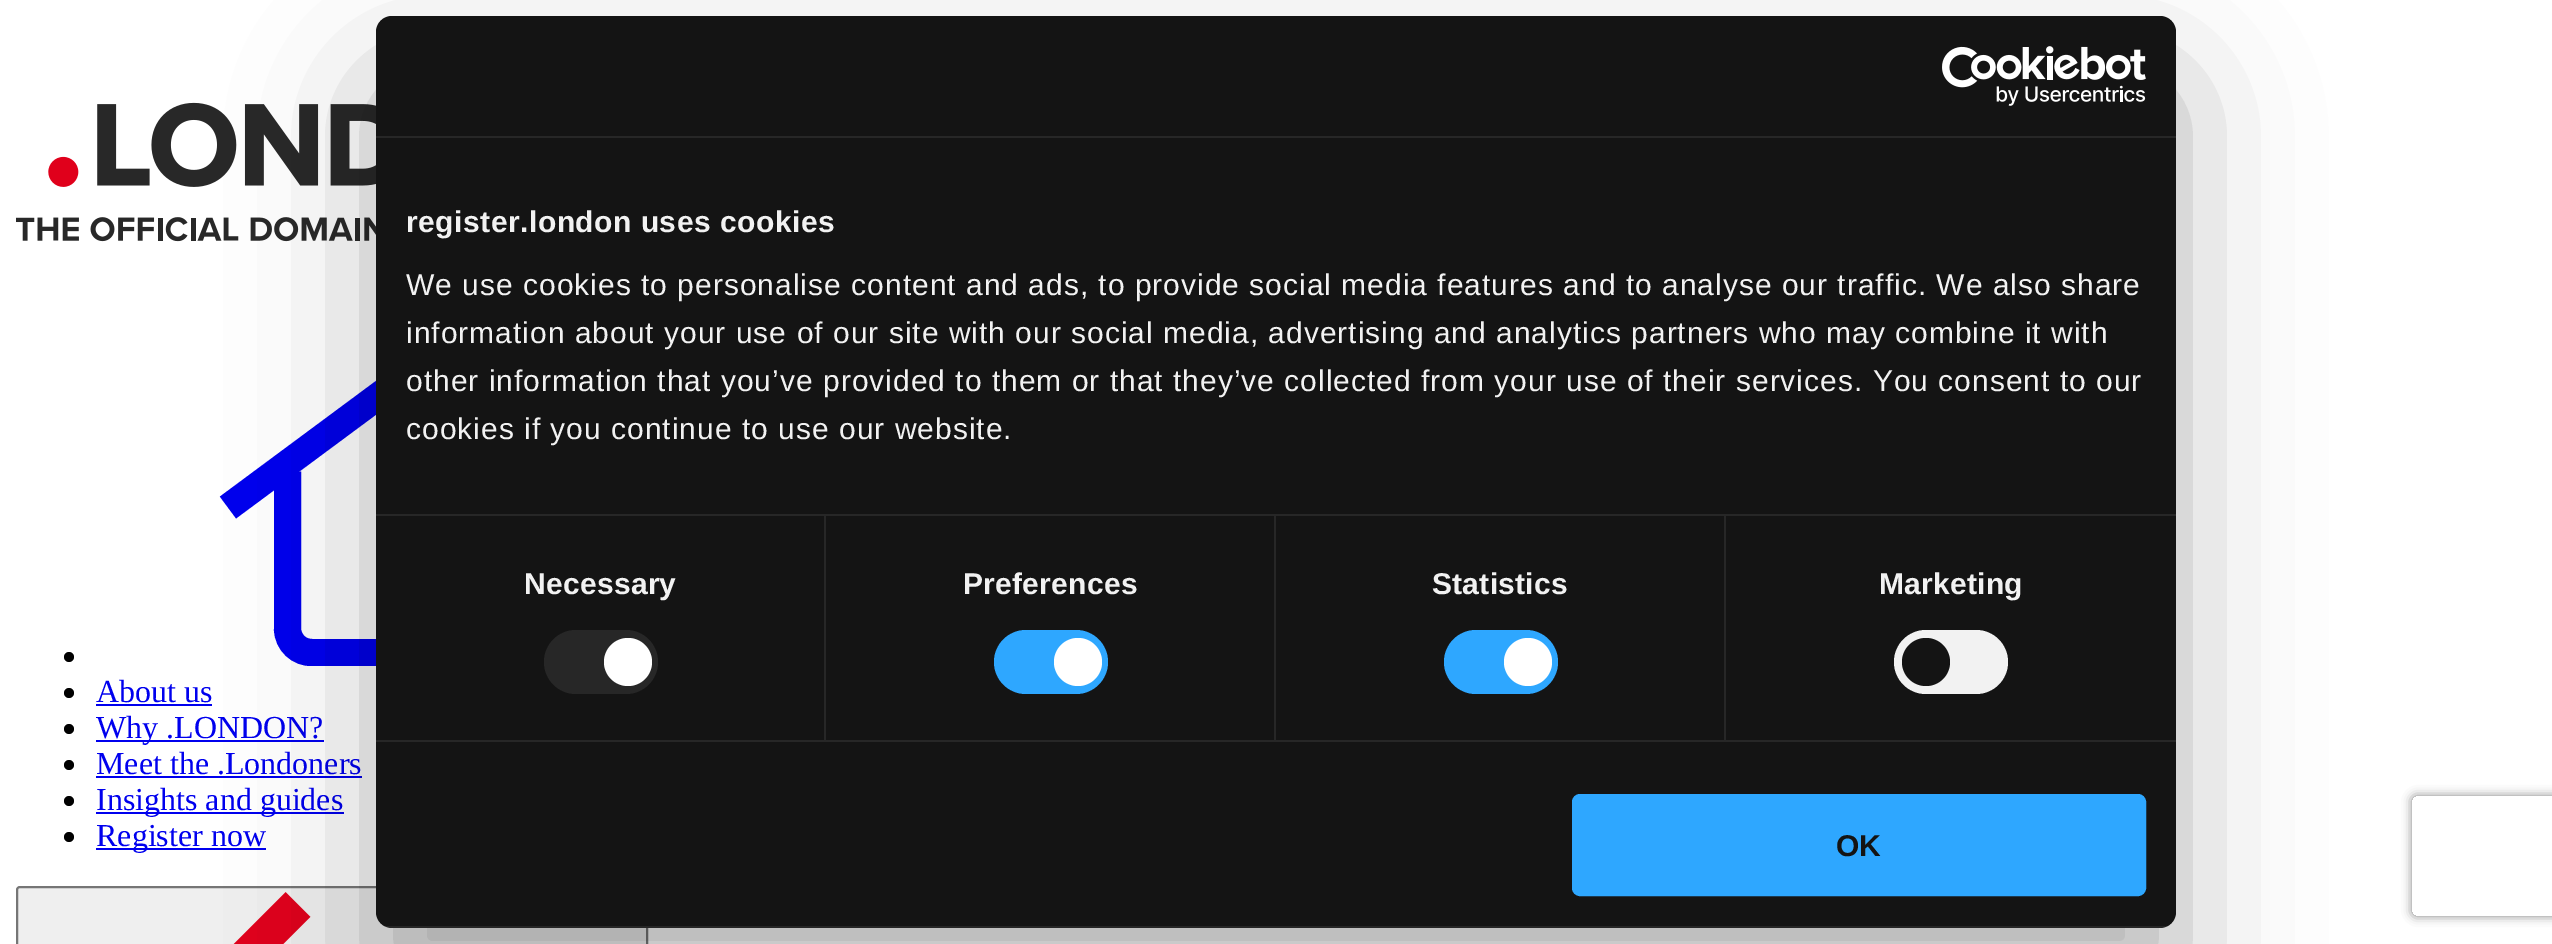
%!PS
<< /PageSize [2552 944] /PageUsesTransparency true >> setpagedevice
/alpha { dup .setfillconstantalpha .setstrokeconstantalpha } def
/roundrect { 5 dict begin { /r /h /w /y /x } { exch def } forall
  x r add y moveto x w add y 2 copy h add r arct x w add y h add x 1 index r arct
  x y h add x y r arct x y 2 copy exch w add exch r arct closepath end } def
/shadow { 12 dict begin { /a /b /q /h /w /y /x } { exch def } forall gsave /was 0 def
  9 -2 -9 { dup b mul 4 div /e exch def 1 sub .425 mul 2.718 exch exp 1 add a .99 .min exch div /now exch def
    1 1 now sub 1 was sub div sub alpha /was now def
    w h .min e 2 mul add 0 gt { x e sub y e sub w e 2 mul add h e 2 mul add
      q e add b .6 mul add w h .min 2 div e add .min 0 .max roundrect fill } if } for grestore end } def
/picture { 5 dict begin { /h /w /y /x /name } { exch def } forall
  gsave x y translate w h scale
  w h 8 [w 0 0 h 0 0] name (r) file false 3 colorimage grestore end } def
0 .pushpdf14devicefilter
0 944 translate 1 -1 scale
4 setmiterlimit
1 setgray
0 0 2552 944 rectfill
(img1.rgb) 16 102 360 140 picture
0 0 0.933 setrgbcolor
27.1 setlinewidth
newpath 228 507.5 moveto 396 383 lineto 564 507.5 lineto stroke
0 setgray
newpath 69 657 5 0 360 arc closepath fill
gsave
96 366 600 300 rectclip
0 0 0.933 setrgbcolor
newpath 401.5 652.5 moveto 312.5 652.5 lineto 299 653 288 642.5 287.5 629 curveto 287.5 471.5 lineto stroke
grestore
newpath 69 693 5 0 360 arc closepath fill
/LiberationSerif-Regular [32 0 0 -32 0 0] selectfont
0 0 0.933 setrgbcolor
96 702 moveto (About us) show
96 704 116 2 rectfill
0 setgray
newpath 69 729 5 0 360 arc closepath fill
0 0 0.933 setrgbcolor
96 740 228 2 rectfill
96 738 moveto (Why .LONDON?) show
0 setgray
newpath 69 765 5 0 360 arc closepath fill
0 0 0.933 setrgbcolor
96 774 moveto (Meet the .Londoners) show
96 776 266 2 rectfill
0 setgray
newpath 69 801 5 0 360 arc closepath fill
0 0 0.933 setrgbcolor
96 812 248 2 rectfill
96 810 moveto (Insights and guides) show
0 setgray
newpath 69 837 5 0 360 arc closepath fill
0 0 0.933 setrgbcolor
96 848 170 2 rectfill
96 846 moveto (Register now) show
0.937 setgray
17 887 630 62 3 roundrect gsave fill grestore
0.463 setgray
2 setlinewidth
stroke
0.878 0.004 0.11 setrgbcolor
34.8 setlinewidth
newpath 298 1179.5 moveto 160.5 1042 lineto 298 904.5 lineto stroke
0 setgray
376 80 1800 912 16 68 0.3 shadow
0.078 setgray
376 16 1800 912 16 roundrect fill
0.153 setgray
376 136 1800 2 rectfill
(img2.rgb) 1942 46 204 60 picture
376 514 1800 2 rectfill
/LiberationSans-Bold [30 0 0 -30 0 0] selectfont
0.949 setgray
406 232 moveto 0.5 0 (register.london uses cookies) ashow
/LiberationSans-Regular [30 0 0 -30 0 0] selectfont
406 295 moveto 1 0 (We use cookies to personalise content and ads, to provide social media features and to analyse our traffic. We also share) ashow
406 343 moveto 1 0 (information about your use of our site with our social media, advertising and analytics partners who may combine it with) ashow
406 391 moveto 1 0 (other information that you’ve provided to them or that they’ve collected from your use of their services. You consent to our) ashow
406 439 moveto 1 0 (cookies if you continue to use our website.) ashow
0.153 setgray
376 740 1800 2 rectfill
824 516 2 224 rectfill
/LiberationSans-Bold [30 0 0 -30 0 0] selectfont
0.949 setgray
524 594 moveto 0.25 0 (Necessary) ashow
0.153 setgray
544 630 114 64 32 roundrect fill
1 setgray
newpath 628 662 24 0 360 arc closepath fill
0.153 setgray
1274 516 2 224 rectfill
0.949 setgray
963 594 moveto 0.25 0 (Preferences) ashow
0.18 0.655 1 setrgbcolor
994 630 114 64 32 roundrect fill
1 setgray
newpath 1078 662 24 0 360 arc closepath fill
0.153 setgray
1724 516 2 224 rectfill
0.949 setgray
1432 594 moveto 0.25 0 (Statistics) ashow
0.18 0.655 1 setrgbcolor
1444 630 114 64 32 roundrect fill
1 setgray
newpath 1528 662 24 0 360 arc closepath fill
0.949 setgray
1879 594 moveto 0.25 0 (Marketing) ashow
1894 630 114 64 32 roundrect fill
0.078 setgray
newpath 1926 662 24 0 360 arc closepath fill
gsave
376 16 1800 912 16 roundrect clip newpath
0.08 alpha
1 setgray
385 926 1782 2 rectfill
grestore
0.18 0.655 1 setrgbcolor
1574 796 570 98 6 roundrect gsave fill grestore
4 setlinewidth
stroke
0.078 setgray
1836 856 moveto (OK) show
gsave
newpath 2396 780 moveto 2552 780 lineto 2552 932 lineto 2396 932 lineto closepath 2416 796 moveto 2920 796 lineto 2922 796 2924 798 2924 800 curveto 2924 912 lineto 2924 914 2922 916 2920 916 curveto 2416 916 lineto 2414 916 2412 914 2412 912 curveto 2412 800 lineto 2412 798 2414 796 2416 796 curveto closepath eoclip newpath
0.502 setgray
2412 796 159 120 4 5 1 shadow
grestore
.poppdf14devicefilter showpage
